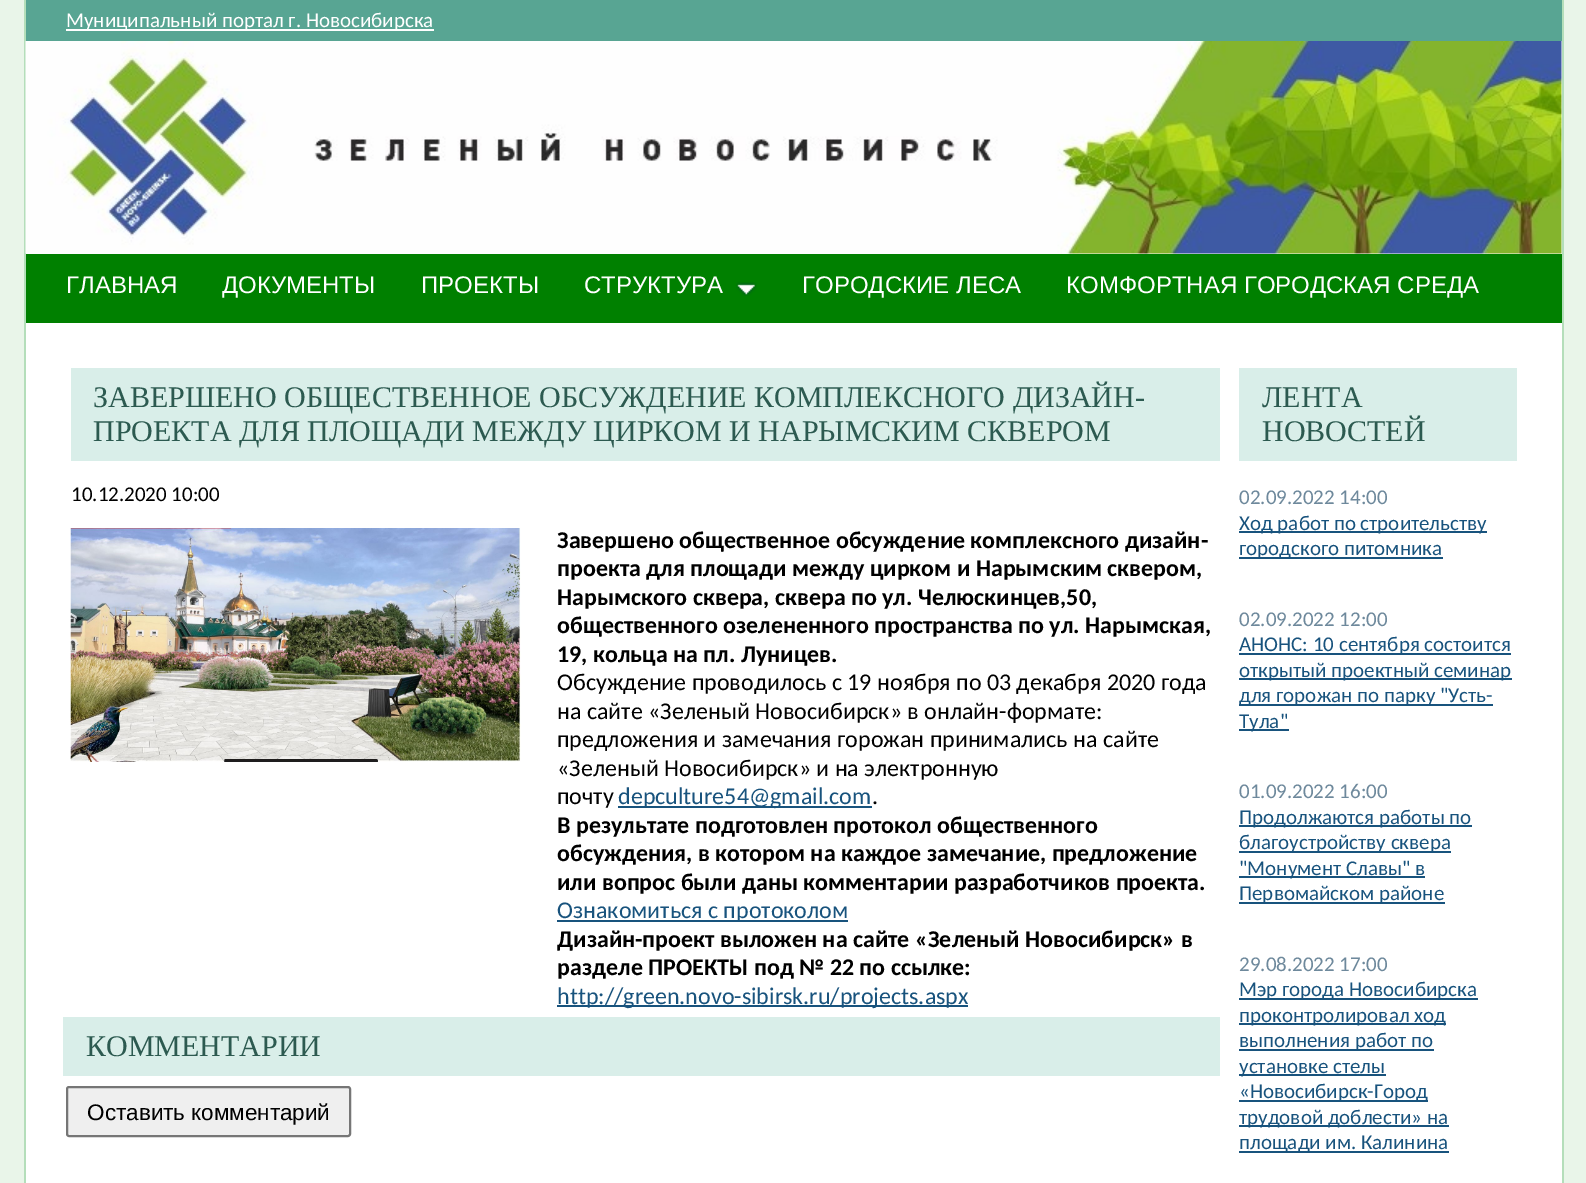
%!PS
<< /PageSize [1586 1183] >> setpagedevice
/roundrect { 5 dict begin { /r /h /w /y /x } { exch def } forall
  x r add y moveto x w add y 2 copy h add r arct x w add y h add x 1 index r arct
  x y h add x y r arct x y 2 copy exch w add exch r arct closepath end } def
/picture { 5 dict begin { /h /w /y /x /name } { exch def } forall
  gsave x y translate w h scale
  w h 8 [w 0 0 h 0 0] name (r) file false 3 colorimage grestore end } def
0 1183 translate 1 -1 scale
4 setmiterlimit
0.914 0.961 0.914 setrgbcolor
0 0 1586 1183 rectfill
1 setgray
26 41 1536 1142 rectfill
0.706 0.871 0.729 setrgbcolor
1562 0 2 1183 rectfill
24 0 2 1183 rectfill
(img1.rgb) 25 41 1537 213 picture
0.345 0.647 0.576 setrgbcolor
26 0 1536 41 rectfill
1 setgray
66 29 368 2 rectfill
/Carlito-Regular [21 0 0 -21 0 0] selectfont
66 27 moveto (Муниципальный портал г. Новосибирска) show
0 0.502 0 setrgbcolor
26 254 1536 69 rectfill
/LiberationSans-Regular [24 0 0 -24 0 0] selectfont
1 setgray
66 293 moveto (ГЛАВНАЯ) show
222 293 moveto (ДОКУМЕНТЫ) show
421 293 moveto (ПРОЕКТЫ) show
(img2.rgb) 736 282 21 14 picture
584 293 moveto (СТРУКТУРА) show
802 293 moveto (ГОРОДСКИЕ ЛЕСА) show
1066 293 moveto (КОМФОРТНАЯ ГОРОДСКАЯ СРЕДА) show
0.851 0.933 0.914 setrgbcolor
71 368 1149 93 rectfill
/LiberationSerif-Regular [30 0 0 -30 0 0] selectfont
0.173 0.353 0.314 setrgbcolor
93 407 moveto (ЗАВЕРШЕНО ОБЩЕСТВЕННОЕ ОБСУЖДЕНИЕ КОМПЛЕКСНОГО ДИЗАЙН-) show
93 441 moveto (ПРОЕКТА ДЛЯ ПЛОЩАДИ МЕЖДУ ЦИРКОМ И НАРЫМСКИМ СКВЕРОМ) show
/Carlito-Regular [21 0 0 -21 0 0] selectfont
0 setgray
71 501 moveto (10.12.2020 10:00) show
(img3.rgb) 70 528 451 234 picture
/Carlito-Bold [24 0 0 -24 0 0] selectfont
557 548 moveto (Завершено общественное обсуждение комплексного дизайн-) show
557 576 moveto (проекта для площади между цирком и Нарымским сквером,) show
557 605 moveto (Нарымского сквера, сквера по ул. Челюскинцев,50,) show
557 633 moveto (общественного озелененного пространства по ул. Нарымская,) show
557 662 moveto (19, кольца на пл. Луницев.) show
/Carlito-Regular [24 0 0 -24 0 0] selectfont
557 690 moveto (Обсуждение проводилось с 19 ноября по 03 декабря 2020 года) show
557 719 moveto (на сайте «Зеленый Новосибирск» в онлайн-формате:) show
557 747 moveto (предложения и замечания горожан принимались на сайте) show
557 776 moveto («Зеленый Новосибирск» и на электронную) show
557 804 moveto (почту) show
0.094 0.325 0.49 setrgbcolor
618 806 254 2 rectfill
618 804 moveto (depculture54@gmail.com) show
0 setgray
872 804 moveto (.) show
/Carlito-Bold [24 0 0 -24 0 0] selectfont
557 833 moveto (В результате подготовлен протокол общественного) show
557 861 moveto (обсуждения, в котором на каждое замечание, предложение) show
557 890 moveto (или вопрос были даны комментарии разработчиков проекта.) show
0.094 0.325 0.49 setrgbcolor
557 920 291 2 rectfill
/Carlito-Regular [24 0 0 -24 0 0] selectfont
557 918 moveto (Ознакомиться с протоколом) show
/Carlito-Bold [24 0 0 -24 0 0] selectfont
0 setgray
557 947 moveto (Дизайн-проект выложен на сайте «Зеленый Новосибирск» в) show
557 975 moveto (разделе ПРОЕКТЫ под № 22 по ссылке:) show
0.094 0.325 0.49 setrgbcolor
557 1005 411 2 rectfill
/Carlito-Regular [24 0 0 -24 0 0] selectfont
557 1004 moveto (http://green.novo-sibirsk.ru/projects.aspx) show
0.851 0.933 0.914 setrgbcolor
63 1017 1157 59 rectfill
/LiberationSerif-Regular [30 0 0 -30 0 0] selectfont
0.173 0.353 0.314 setrgbcolor
86 1056 moveto (КОММЕНТАРИИ) show
0.937 setgray
67 1087 283 49 2 roundrect gsave fill grestore
0.463 setgray
2 setlinewidth
stroke
/LiberationSans-Regular [22.5 0 0 -22.5 0 0] selectfont
0 setgray
87 1120 moveto (Оставить комментарий) show
0.851 0.933 0.914 setrgbcolor
1239 368 278 93 rectfill
/LiberationSerif-Regular [30 0 0 -30 0 0] selectfont
0.173 0.353 0.314 setrgbcolor
1262 407 moveto (ЛЕНТА) show
1262 441 moveto (НОВОСТЕЙ) show
/Carlito-Regular [21 0 0 -21 0 0] selectfont
0.431 0.537 0.612 setrgbcolor
1239 504 moveto (02.09.2022 14:00) show
0.094 0.325 0.49 setrgbcolor
1239 531 248 2 rectfill
1239 530 moveto (Ход работ по строительству) show
1239 557 204 2 rectfill
1239 555 moveto (городского питомника) show
0.431 0.537 0.612 setrgbcolor
1239 626 moveto (02.09.2022 12:00) show
0.094 0.325 0.49 setrgbcolor
1239 653 272 2 rectfill
1239 651 moveto (АНОНС: 10 сентября состоится) show
1239 678 273 2 rectfill
1239 677 moveto (открытый проектный семинар) show
1239 704 254 2 rectfill
1239 702 moveto (для горожан по парку "Усть-) show
1239 729 50 2 rectfill
1239 728 moveto (Тула") show
0.431 0.537 0.612 setrgbcolor
1239 798 moveto (01.09.2022 16:00) show
0.094 0.325 0.49 setrgbcolor
1239 825 233 2 rectfill
1239 824 moveto (Продолжаются работы по) show
1239 851 212 2 rectfill
1239 849 moveto (благоустройству сквера) show
1239 876 186 2 rectfill
1239 875 moveto ("Монумент Славы" в) show
1239 902 206 2 rectfill
1239 900 moveto (Первомайском районе) show
0.431 0.537 0.612 setrgbcolor
1239 971 moveto (29.08.2022 17:00) show
0.094 0.325 0.49 setrgbcolor
1239 998 239 2 rectfill
1239 996 moveto (Мэр города Новосибирска) show
1239 1023 207 2 rectfill
1239 1022 moveto (проконтролировал ход) show
1239 1049 195 2 rectfill
1239 1047 moveto (выполнения работ по) show
1239 1074 147 2 rectfill
1239 1073 moveto (установке стелы) show
1239 1100 189 2 rectfill
1239 1098 moveto («Новосибирск-Город) show
1239 1125 210 2 rectfill
1239 1124 moveto (трудовой доблести» на) show
1239 1151 210 2 rectfill
1239 1149 moveto (площади им. Калинина) show
showpage
